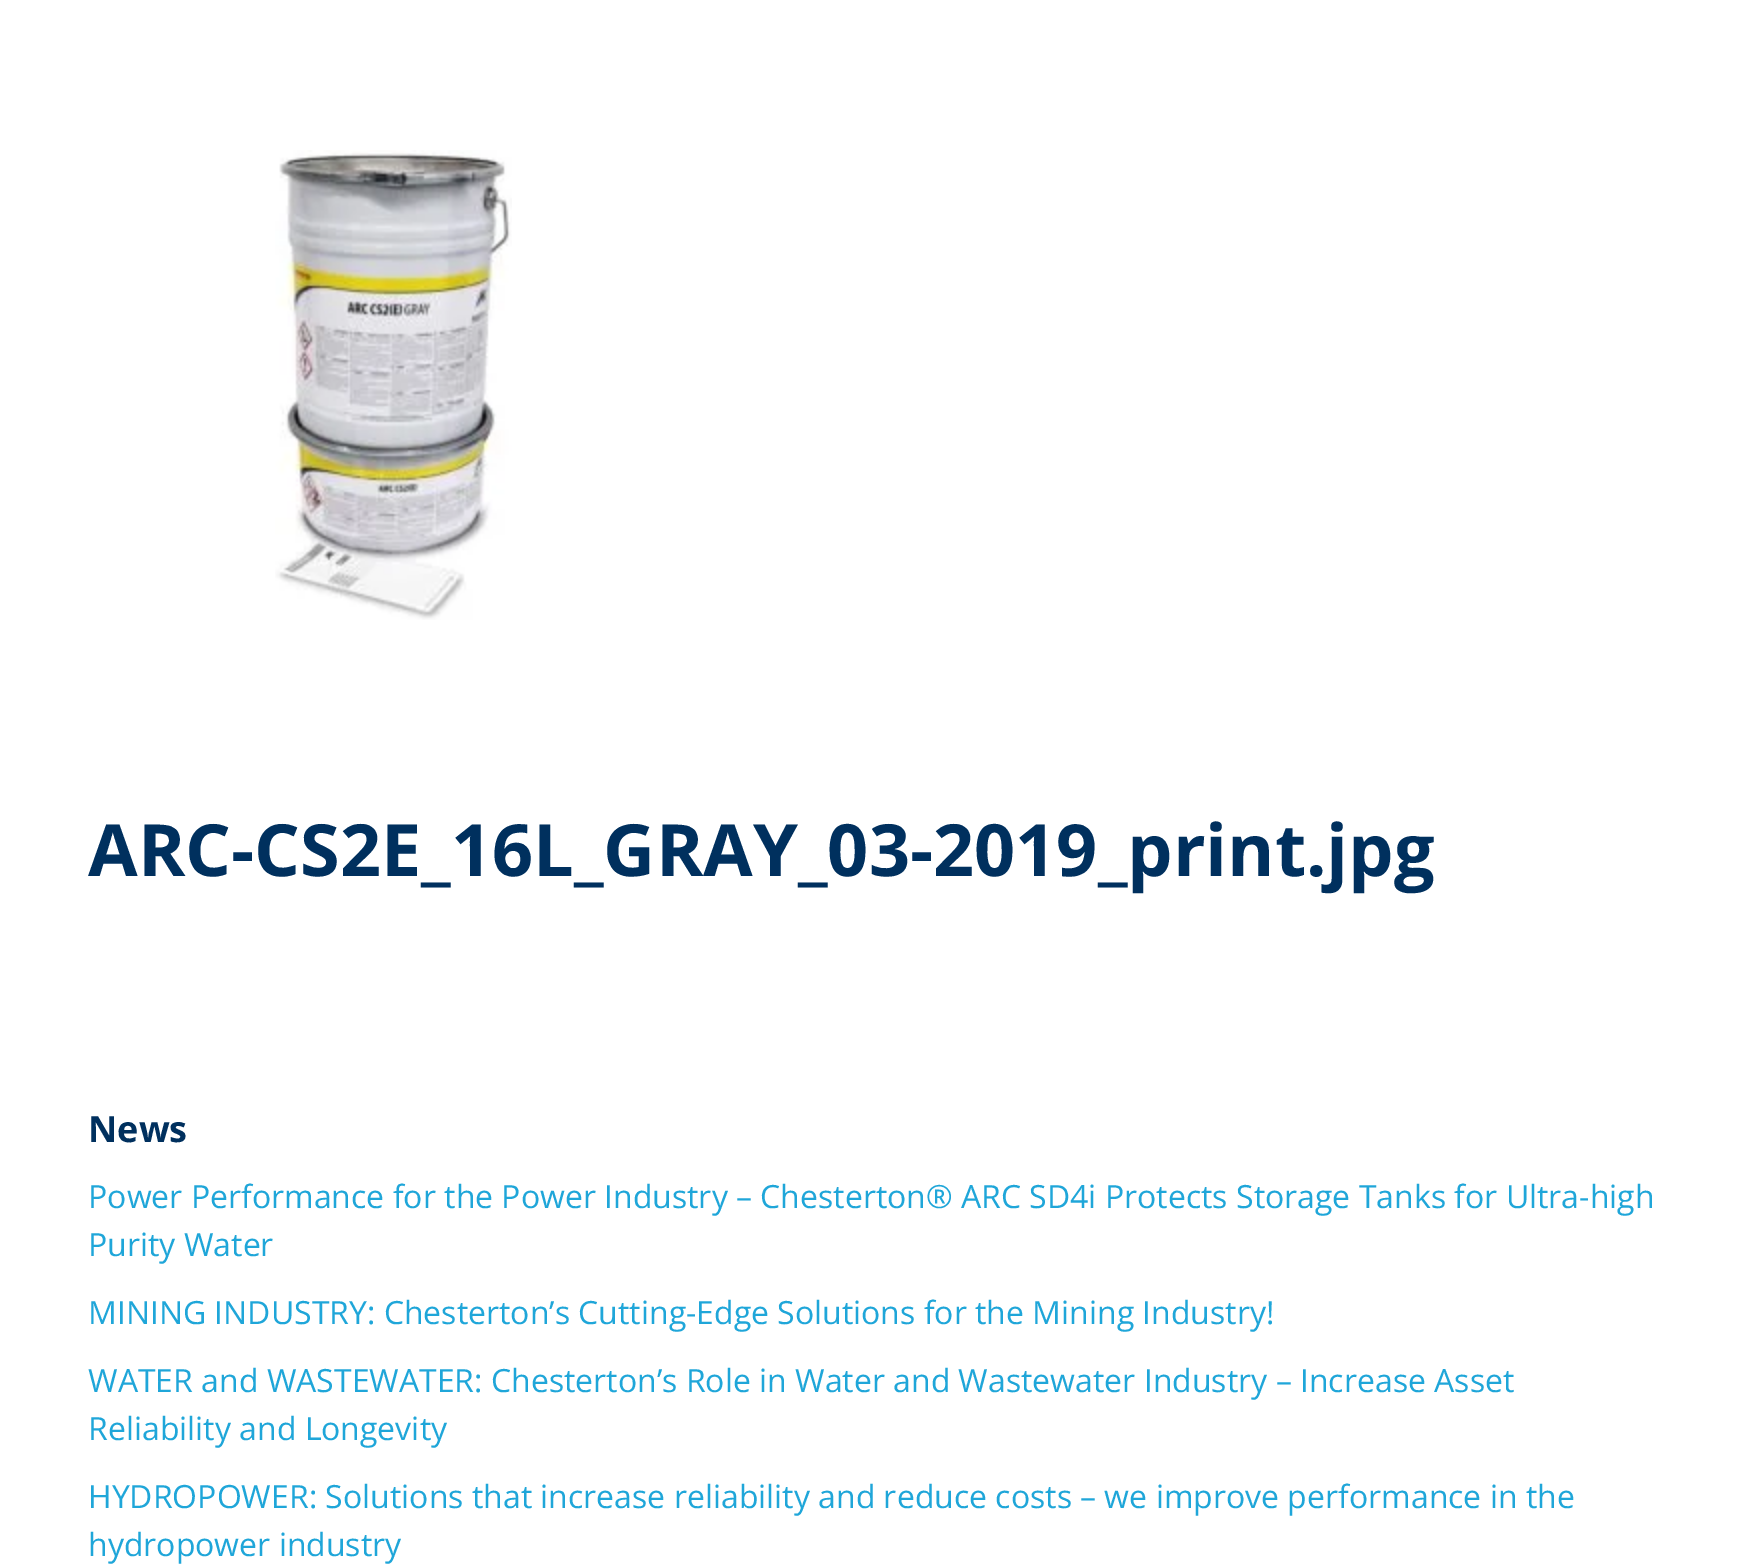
%!PS
<< /PageSize [1751 1567] >> setpagedevice
/picture { 5 dict begin { /h /w /y /x /name } { exch def } forall
  gsave x y translate w h scale
  w h 8 [w 0 0 h 0 0] name (r) file false 3 colorimage grestore end } def
0 1567 translate 1 -1 scale
4 setmiterlimit
1 setgray
0 0 1751 1567 rectfill
(img1.rgb) 275 150 237 470 picture
/OpenSans-Bold [72 0 0 -72 0 0] selectfont
0 0.188 0.369 setrgbcolor
88 876 moveto (ARC-CS2E_16L_GRAY_03-2019_print.jpg) show
/OpenSans-Bold [36 0 0 -36 0 0] selectfont
88 1142 moveto (News) show
/OpenSans-Regular [32 0 0 -32 0 0] selectfont
0.122 0.651 0.851 setrgbcolor
88 1208 moveto (Power Performance for the Power Industry – Chesterton® ARC SD4i Protects Storage Tanks for Ultra-high) show
88 1256 moveto (Purity Water) show
88 1324 moveto (MINING INDUSTRY: Chesterton’s Cutting-Edge Solutions for the Mining Industry!) show
88 1392 moveto (WATER and WASTEWATER: Chesterton’s Role in Water and Wastewater Industry – Increase Asset) show
88 1440 moveto (Reliability and Longevity) show
88 1508 moveto (HYDROPOWER: Solutions that increase reliability and reduce costs – we improve performance in the) show
88 1556 moveto (hydropower industry) show
showpage
